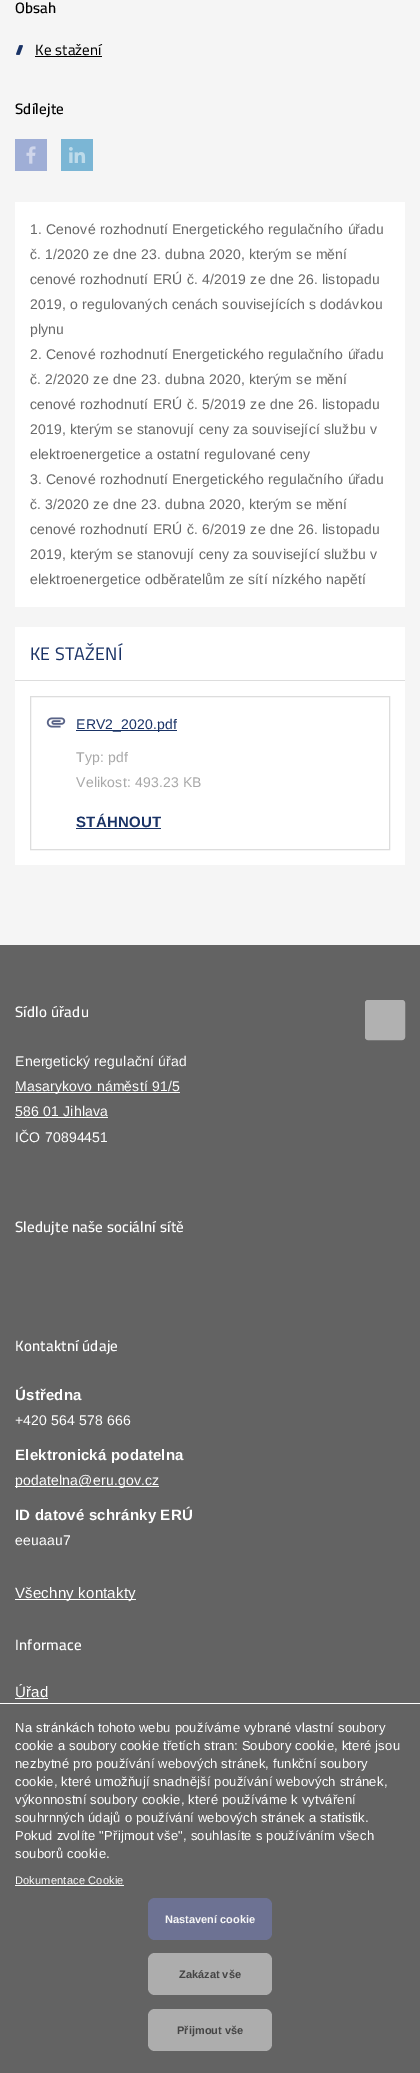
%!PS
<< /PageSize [420 2073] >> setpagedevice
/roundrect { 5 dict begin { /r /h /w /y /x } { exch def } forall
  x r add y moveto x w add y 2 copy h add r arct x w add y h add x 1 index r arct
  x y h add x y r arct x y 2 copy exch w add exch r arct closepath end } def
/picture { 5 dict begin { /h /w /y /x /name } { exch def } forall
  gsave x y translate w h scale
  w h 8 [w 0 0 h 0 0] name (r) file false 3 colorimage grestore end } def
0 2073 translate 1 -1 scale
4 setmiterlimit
0.961 setgray
0 0 420 2073 rectfill
/Cairo-SemiBold [15 0 0 -15 0 0] selectfont
0 setgray
15 13 moveto 0.2 0 (Obsah) ashow
(img1.rgb) 16 45 7 10 picture
/Cairo-Regular [15 0 0 -15 0 0] selectfont
35 55 moveto 0.2 0 (Ke stažení) ashow
35 56 67 1 rectfill
/Cairo-SemiBold [15 0 0 -15 0 0] selectfont
15 114 moveto 0.2 0 (Sdílejte) ashow
(img2.rgb) 15 139 32 32 picture
(img3.rgb) 61 139 32 32 picture
1 setgray
15 202 390 405 rectfill
/LiberationSans-Regular [14 0 0 -14 0 0] selectfont
0.408 setgray
30 234 moveto 0.2 0 (1. Cenové rozhodnutí Energetického regulačního úřadu) ashow
30 259 moveto 0.2 0 (č. 1/2020 ze dne 23. dubna 2020, kterým se mění) ashow
30 284 moveto 0.2 0 (cenové rozhodnutí ERÚ č. 4/2019 ze dne 26. listopadu) ashow
30 309 moveto 0.2 0 (2019, o regulovaných cenách souvisejících s dodávkou) ashow
30 334 moveto 0.2 0 (plynu) ashow
30 359 moveto 0.2 0 (2. Cenové rozhodnutí Energetického regulačního úřadu) ashow
30 384 moveto 0.2 0 (č. 2/2020 ze dne 23. dubna 2020, kterým se mění) ashow
30 409 moveto 0.2 0 (cenové rozhodnutí ERÚ č. 5/2019 ze dne 26. listopadu) ashow
30 434 moveto 0.2 0 (2019, kterým se stanovují ceny za související službu v) ashow
30 459 moveto 0.2 0 (elektroenergetice a ostatní regulované ceny) ashow
30 484 moveto 0.2 0 (3. Cenové rozhodnutí Energetického regulačního úřadu) ashow
30 509 moveto 0.2 0 (č. 3/2020 ze dne 23. dubna 2020, kterým se mění) ashow
30 534 moveto 0.2 0 (cenové rozhodnutí ERÚ č. 6/2019 ze dne 26. listopadu) ashow
30 559 moveto 0.2 0 (2019, kterým se stanovují ceny za související službu v) ashow
30 584 moveto 0.2 0 (elektroenergetice odběratelům ze sítí nízkého napětí) ashow
1 setgray
15 627 390 238 rectfill
0.867 setgray
15 680 390 1 rectfill
/Cairo-Regular [18 0 0 -18 0 0] selectfont
0.102 0.2 0.4 setrgbcolor
30 660 moveto 0.2 0 (KE STAŽENÍ) ashow
0.867 setgray
30.5 696.5 359 153 rectstroke
(img4.rgb) 46 717 20 11 picture
0.102 0.2 0.4 setrgbcolor
76 730 101 1 rectfill
/LiberationSans-Regular [14 0 0 -14 0 0] selectfont
76 729 moveto 0.2 0 (ERV2_2020.pdf) ashow
0.659 setgray
76 762 moveto 0.2 0 (Typ: pdf) ashow
76 787 moveto 0.2 0 (Velikost: 493.23 KB) ashow
/LiberationSans-Bold [15 0 0 -15 0 0] selectfont
0.102 0.2 0.4 setrgbcolor
76 827 moveto 0.2 0 (STÁHNOUT) ashow
76 828 85 1 rectfill
0.388 setgray
0 945 420 758 rectfill
/Cairo-SemiBold [15 0 0 -15 0 0] selectfont
1 setgray
15 1017 moveto 0.2 0 (Sídlo úřadu) ashow
/LiberationSans-Regular [14 0 0 -14 0 0] selectfont
15 1066 moveto 0.2 0 (Energetický regulační úřad) ashow
15 1092 165 1 rectfill
15 1091 moveto 0.2 0 (Masarykovo náměstí 91/5) ashow
15 1116 moveto 0.2 0 (586 01 Jihlava) ashow
15 1117 93 1 rectfill
15 1142 moveto 0.2 0 (IČO 70894451) ashow
/Cairo-SemiBold [15 0 0 -15 0 0] selectfont
15 1232 moveto 0.2 0 (Sledujte naše sociální sítě) ashow
15 1351 moveto 0.2 0 (Kontaktní údaje) ashow
/LiberationSans-Bold [15 0 0 -15 0 0] selectfont
15 1400 moveto 0.2 0 (Ústředna) ashow
/LiberationSans-Regular [14 0 0 -14 0 0] selectfont
15 1425 moveto 0.2 0 (+420 564 578 666) ashow
/LiberationSans-Bold [15 0 0 -15 0 0] selectfont
15 1460 moveto 0.2 0 (Elektronická podatelna) ashow
15 1486 144 1 rectfill
/LiberationSans-Regular [14 0 0 -14 0 0] selectfont
15 1485 moveto 0.2 0 (podatelna@eru.gov.cz) ashow
/LiberationSans-Bold [15 0 0 -15 0 0] selectfont
15 1520 moveto 0.2 0 (ID datové schránky ERÚ) ashow
/LiberationSans-Regular [14 0 0 -14 0 0] selectfont
15 1545 moveto 0.2 0 (eeuaau7) ashow
15 1599 121 1 rectfill
/LiberationSans-Regular [15 0 0 -15 0 0] selectfont
15 1598 moveto 0.2 0 (Všechny kontakty) ashow
/Cairo-SemiBold [15 0 0 -15 0 0] selectfont
15 1650 moveto 0.2 0 (Informace) ashow
/LiberationSans-Regular [15 0 0 -15 0 0] selectfont
15 1697 moveto 0.2 0 (Úřad) ashow
15 1698 33 1 rectfill
0.694 setgray
365.5 1000.5 39 39 2.5 roundrect gsave fill grestore
stroke
0.388 setgray
0 1704 420 369 rectfill
1 setgray
0 1703 420 1 rectfill
/LiberationSans-Regular [13 0 0 -13 0 0] selectfont
15 1732 moveto 0.2 0 (Na stránkách tohoto webu používáme vybrané vlastní soubory) ashow
15 1750 moveto 0.2 0 (cookie a soubory cookie třetích stran: Soubory cookie, které jsou) ashow
15 1768 moveto 0.2 0 (nezbytné pro používání webových stránek, funkční soubory) ashow
15 1786 moveto 0.2 0 (cookie, které umožňují snadnější používání webových stránek,) ashow
15 1804 moveto 0.2 0 (výkonnostní soubory cookie, které používáme k vytváření) ashow
15 1822 moveto 0.2 0 (souhrnných údajů o používání webových stránek a statistik.) ashow
15 1840 moveto 0.2 0 (Pokud zvolíte "Přijmout vše", souhlasíte s používáním všech) ashow
15 1858 moveto 0.2 0 (souborů cookie.) ashow
/LiberationSans-Regular [11 0 0 -11 0 0] selectfont
15 1884 moveto 0.2 0 (Dokumentace Cookie) ashow
15 1885 109 1 rectfill
0.427 0.447 0.576 setrgbcolor
148 1898 124 42 7 roundrect fill
/LiberationSans-Bold [11 0 0 -11 0 0] selectfont
0.969 setgray
165 1923 moveto (Nastavení cookie) show
0.678 setgray
148 1953 124 42 7 roundrect fill
0.267 setgray
179 1978 moveto (Zakázat vše) show
0.678 setgray
148 2009 124 42 7 roundrect fill
0.267 setgray
177 2034 moveto (Přijmout vše) show
showpage
